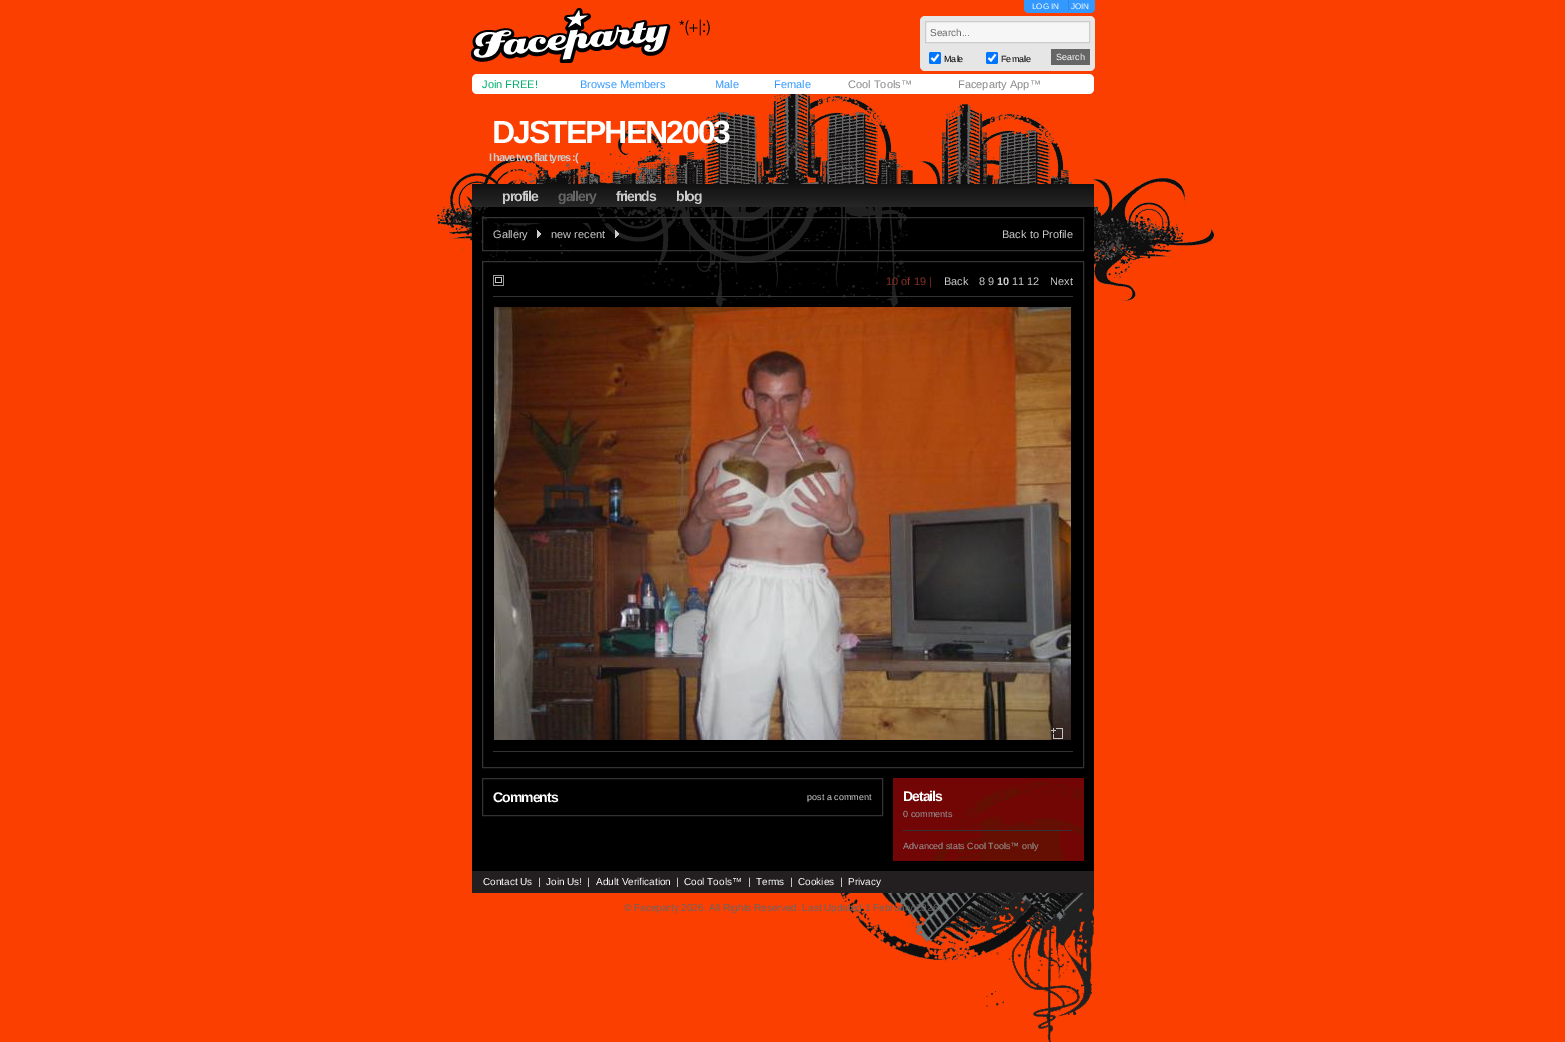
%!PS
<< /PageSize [1565 1042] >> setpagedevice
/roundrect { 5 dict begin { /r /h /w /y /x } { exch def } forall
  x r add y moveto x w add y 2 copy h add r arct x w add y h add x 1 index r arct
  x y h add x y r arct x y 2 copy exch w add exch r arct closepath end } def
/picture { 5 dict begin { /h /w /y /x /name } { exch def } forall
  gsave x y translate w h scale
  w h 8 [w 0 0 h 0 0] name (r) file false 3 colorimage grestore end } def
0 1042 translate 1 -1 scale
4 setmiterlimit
0.984 0.247 0 setrgbcolor
0 0 1565 1042 rectfill
(img1.rgb) 437 86 777 247 picture
(img2.rgb) 471 8 239 55 picture
0.2 0.6 1 setrgbcolor
newpath 1024 0 moveto 1095 0 lineto 1095 8 lineto 1095 11 1093 13 1090 13 curveto 1029 13 lineto 1026 13 1024 11 1024 8 curveto closepath fill
0.18 0.537 0.898 setrgbcolor
1068 0 1 11 rectfill
/LiberationSans-Regular [8 0 0 -8 0 0] selectfont
1 setgray
1032 9 moveto (LOG IN) show
1071 9 moveto (JOIN) show
0.902 setgray
920 16 175 55 5 roundrect fill
0.965 setgray
newpath 925.5 21.5 moveto 1089.5 21.5 lineto 1089.5 42.5 lineto 925.5 42.5 lineto closepath gsave fill grestore
0.8 setgray
stroke
/LiberationSans-Regular [10 0 0 -10 0 0] selectfont
0.4 setgray
930 36 moveto (Search...) show
0 0.459 1 setrgbcolor
929 52 12 12 2 roundrect fill
1 setgray
1.9 setlinewidth
newpath 931.5 58 moveto 934 60.5 lineto 938.5 54.5 lineto stroke
/LiberationSans-Regular [9 0 0 -9 0 0] selectfont
0 setgray
944 62 moveto (Male) show
0 0.459 1 setrgbcolor
986 52 12 12 2 roundrect fill
1 setgray
newpath 988.5 58 moveto 991 60.5 lineto 995.5 54.5 lineto stroke
0 setgray
1001 62 moveto (Female) show
0.4 setgray
1051 49 39 16 rectfill
1 setgray
1056 60 moveto (Search) show
472 74 622 20 5 roundrect fill
/LiberationSans-Regular [11 0 0 -11 0 0] selectfont
0 0.69 0.439 setrgbcolor
482 88 moveto (Join FREE!) show
0.2 0.6 1 setrgbcolor
580 88 moveto (Browse Members) show
715 88 moveto (Male) show
774 88 moveto (Female) show
0.533 setgray
848 88 moveto (Cool Tools™) show
958 88 moveto (Faceparty App™) show
/LiberationSans-Bold [32 0 0 -32 0 0] selectfont
1 setgray
492 143 moveto -2 0 (DJSTEPHEN2003) ashow
/LiberationSans-Bold [11 0 0 -11 0 0] selectfont
0.8 setgray
489 161 moveto -1 0 (I have two flat tyres :\() ashow
(img3.rgb) 472 184 622 23 picture
/LiberationSans-Bold [14 0 0 -14 0 0] selectfont
502 201 moveto -1 0 (profile) ashow
0.4 setgray
558 201 moveto -1 0 (gallery) ashow
0.8 setgray
616 201 moveto -1 0 (friends) ashow
676 201 moveto -1 0 (blog) ashow
0 setgray
472 207 622 664 rectfill
(img4.rgb) 474 207 436 111 picture
0.2 setgray
1 setlinewidth
482.5 217.5 601 33 rectstroke
/LiberationSans-Regular [11 0 0 -11 0 0] selectfont
0.8 setgray
493 238 moveto (Gallery) show
(img5.rgb) 537 230 4 8 picture
551 238 moveto (new recent) show
(img6.rgb) 615 230 4 8 picture
1002 238 moveto (Back to Profile) show
0.2 setgray
482.5 261.5 601 506 rectstroke
(img7.rgb) 493 275 11 11 picture
0.549 0.192 0.141 setrgbcolor
886 285 moveto (10 of 19 |) show
0.8 setgray
944 285 moveto (Back) show
979 285 moveto (8 9) show
/LiberationSans-Bold [11 0 0 -11 0 0] selectfont
997 285 moveto (10) show
/LiberationSans-Regular [11 0 0 -11 0 0] selectfont
1012 285 moveto (11 12) show
1050 285 moveto (Next) show
0.2 setgray
493 296 580 1 rectfill
(img8.rgb) 494 307 577 433 picture
(img9.rgb) 1051 728 12 11 picture
493 751 580 1 rectfill
482.5 778.5 400 37 rectstroke
/LiberationSans-Bold [14 0 0 -14 0 0] selectfont
1 setgray
493 802 moveto -1 0 (Comments) ashow
/LiberationSans-Regular [9 0 0 -9 0 0] selectfont
0.8 setgray
807 800 moveto (post a comment) show
0.447 0.02 0.02 setrgbcolor
893 778 191 83 rectfill
(img10.rgb) 932 782 152 79 picture
/LiberationSans-Bold [14 0 0 -14 0 0] selectfont
1 setgray
903 801 moveto -1 0 (Details) ashow
/LiberationSans-Regular [9 0 0 -9 0 0] selectfont
0.6 setgray
903 817 moveto (0 comments) show
0.2 setgray
903 830 169 1 rectfill
0.6 setgray
903 849 moveto (Advanced stats Cool Tools™ only) show
0.137 0.122 0.125 setrgbcolor
472 871 622 21 rectfill
/LiberationSans-Regular [10 0 0 -10 0 0] selectfont
1 setgray
483 885 moveto (Contact Us) show
538 885 moveto (|) show
546 885 moveto (Join Us!) show
587 885 moveto (|) show
596 885 moveto (Adult Verification) show
676 885 moveto (|) show
684 885 moveto (Cool Tools™) show
748 885 moveto (|) show
756 885 moveto (Terms) show
790 885 moveto (|) show
798 885 moveto (Cookies) show
840 885 moveto (|) show
848 885 moveto (Privacy) show
(img11.rgb) 472 892 622 150 picture
0.4 setgray
624 911 moveto (© Faceparty 2026. All Rights Reserved. Last Updated 1 February 2026.) show
showpage
